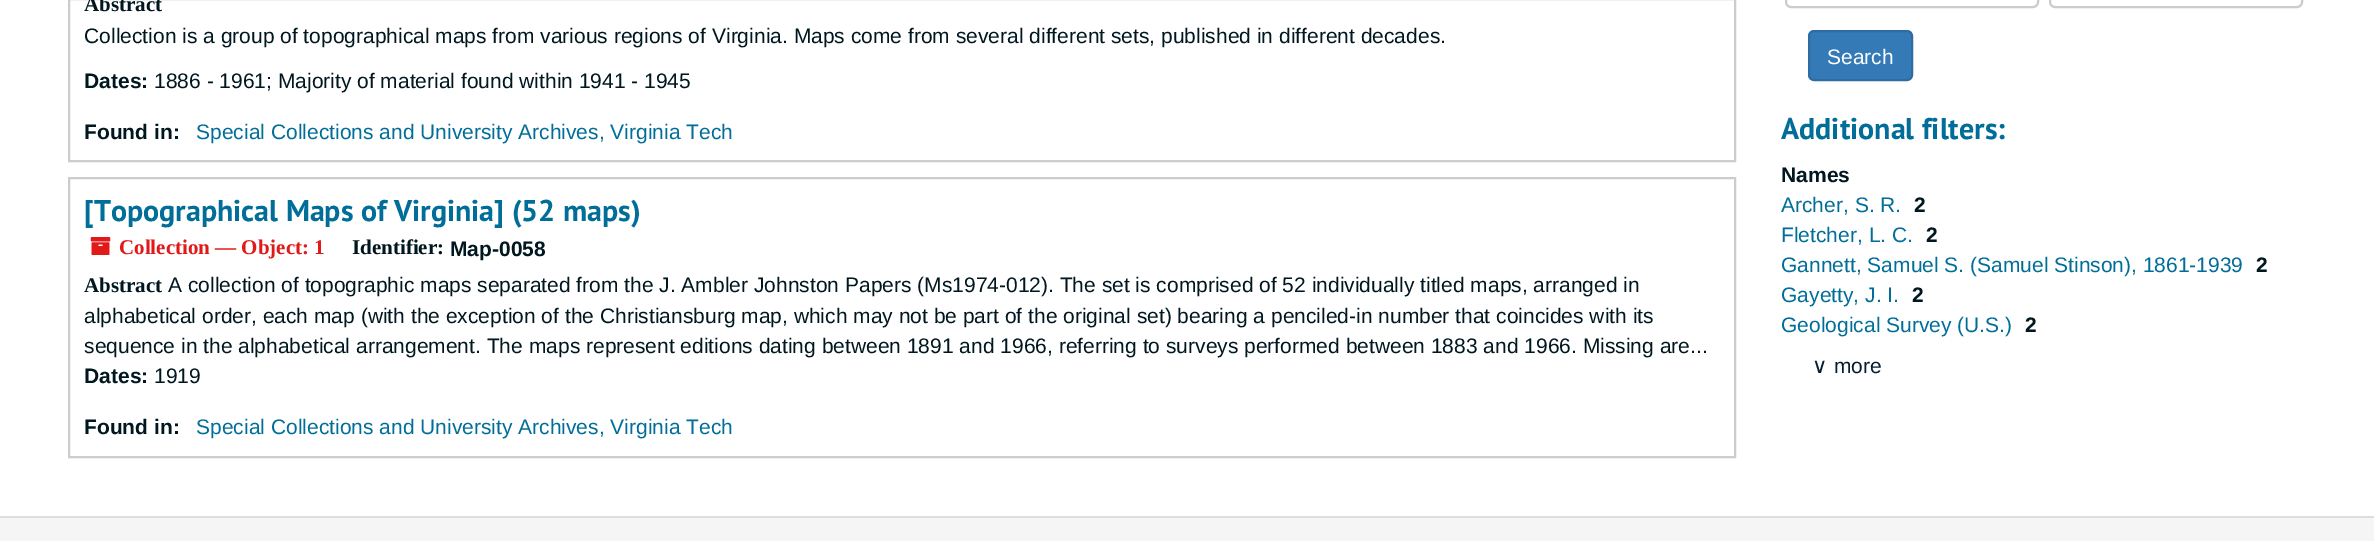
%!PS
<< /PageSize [2374 541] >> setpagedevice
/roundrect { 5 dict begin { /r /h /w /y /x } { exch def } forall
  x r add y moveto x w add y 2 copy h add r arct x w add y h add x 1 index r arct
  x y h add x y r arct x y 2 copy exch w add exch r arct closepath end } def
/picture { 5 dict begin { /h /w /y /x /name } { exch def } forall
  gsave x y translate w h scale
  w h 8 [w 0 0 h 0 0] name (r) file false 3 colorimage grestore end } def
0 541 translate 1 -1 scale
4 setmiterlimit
1 setgray
0 0 2374 541 rectfill
0.8 setgray
2 setlinewidth
69 -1 1666 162 rectstroke
/LiberationSerif-Bold [21 0 0 -21 0 0] selectfont
0 0.09 0.122 setrgbcolor
84 11 moveto (Abstract) show
/LiberationSans-Regular [21 0 0 -21 0 0] selectfont
84 43 moveto (Collection is a group of topographical maps from various regions of Virginia. Maps come from several different sets, published in different decades.) show
/LiberationSans-Bold [21 0 0 -21 0 0] selectfont
84 88 moveto (Dates:) show
/LiberationSans-Regular [21 0 0 -21 0 0] selectfont
154 88 moveto (1886 - 1961; Majority of material found within 1941 - 1945) show
/LiberationSans-Bold [21 0 0 -21 0 0] selectfont
84 139 moveto (Found in:) show
/LiberationSans-Regular [21 0 0 -21 0 0] selectfont
0 0.431 0.6 setrgbcolor
196 139 moveto (Special Collections and University Archives, Virginia Tech) show
0.8 setgray
69 178 1666 279 rectstroke
/PTSans-Bold [30 0 0 -30 0 0] selectfont
0 0.431 0.6 setrgbcolor
84 221 moveto ([Topographical Maps of Virginia] \(52 maps\)) show
(img1.rgb) 90 237 21 18 picture
/LiberationSerif-Bold [21 0 0 -21 0 0] selectfont
0.878 0.098 0.098 setrgbcolor
119 254 moveto (Collection — Object: 1) show
0 0.09 0.122 setrgbcolor
352 254 moveto (Identifier:) show
/LiberationSans-Bold [21 0 0 -21 0 0] selectfont
450 256 moveto (Map-0058) show
/LiberationSerif-Bold [21 0 0 -21 0 0] selectfont
84 292 moveto (Abstract) show
/LiberationSans-Regular [21 0 0 -21 0 0] selectfont
168 292 moveto (A collection of topographic maps separated from the J. Ambler Johnston Papers \(Ms1974-012\). The set is comprised of 52 individually titled maps, arranged in) show
84 323 moveto (alphabetical order, each map \(with the exception of the Christiansburg map, which may not be part of the original set\) bearing a penciled-in number that coincides with its) show
84 353 moveto (sequence in the alphabetical arrangement. The maps represent editions dating between 1891 and 1966, referring to surveys performed between 1883 and 1966. Missing are...) show
/LiberationSans-Bold [21 0 0 -21 0 0] selectfont
84 383 moveto (Dates:) show
/LiberationSans-Regular [21 0 0 -21 0 0] selectfont
154 383 moveto (1919) show
/LiberationSans-Bold [21 0 0 -21 0 0] selectfont
84 434 moveto (Found in:) show
/LiberationSans-Regular [21 0 0 -21 0 0] selectfont
0 0.431 0.6 setrgbcolor
196 434 moveto (Special Collections and University Archives, Virginia Tech) show
0.8 setgray
1786 -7 252 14 5 roundrect stroke
2050 -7 252 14 5 roundrect stroke
0.2 0.478 0.718 setrgbcolor
1809 31 103 49 5 roundrect gsave fill grestore
0.18 0.427 0.643 setrgbcolor
stroke
1 setgray
1827 64 moveto (Search) show
/PTSans-Bold [30 0 0 -30 0 0] selectfont
0 0.431 0.6 setrgbcolor
1781 139 moveto (Additional filters:) show
/LiberationSans-Bold [21 0 0 -21 0 0] selectfont
0 0.09 0.122 setrgbcolor
1781 182 moveto (Names) show
/LiberationSans-Regular [21 0 0 -21 0 0] selectfont
0 0.431 0.6 setrgbcolor
1781 212 moveto (Archer, S. R.) show
/LiberationSans-Bold [21 0 0 -21 0 0] selectfont
0 0.09 0.122 setrgbcolor
1914 212 moveto (2) show
/LiberationSans-Regular [21 0 0 -21 0 0] selectfont
0 0.431 0.6 setrgbcolor
1781 242 moveto (Fletcher, L. C.) show
/LiberationSans-Bold [21 0 0 -21 0 0] selectfont
0 0.09 0.122 setrgbcolor
1926 242 moveto (2) show
/LiberationSans-Regular [21 0 0 -21 0 0] selectfont
0 0.431 0.6 setrgbcolor
1781 272 moveto (Gannett, Samuel S. \(Samuel Stinson\), 1861-1939) show
/LiberationSans-Bold [21 0 0 -21 0 0] selectfont
0 0.09 0.122 setrgbcolor
2256 272 moveto (2) show
/LiberationSans-Regular [21 0 0 -21 0 0] selectfont
0 0.431 0.6 setrgbcolor
1781 302 moveto (Gayetty, J. I.) show
/LiberationSans-Bold [21 0 0 -21 0 0] selectfont
0 0.09 0.122 setrgbcolor
1912 302 moveto (2) show
/LiberationSans-Regular [21 0 0 -21 0 0] selectfont
0 0.431 0.6 setrgbcolor
1781 332 moveto (Geological Survey \(U.S.\)) show
/LiberationSans-Bold [21 0 0 -21 0 0] selectfont
0 0.09 0.122 setrgbcolor
2025 332 moveto (2) show
/DejaVuSans-Regular [21 0 0 -21 0 0] selectfont
0.016 0.11 0.184 setrgbcolor
1812 373 moveto (∨) show
/LiberationSans-Regular [21 0 0 -21 0 0] selectfont
1834 373 moveto (more) show
0.961 setgray
0 518 2374 23 rectfill
0.867 setgray
0 516 2374 2 rectfill
showpage
